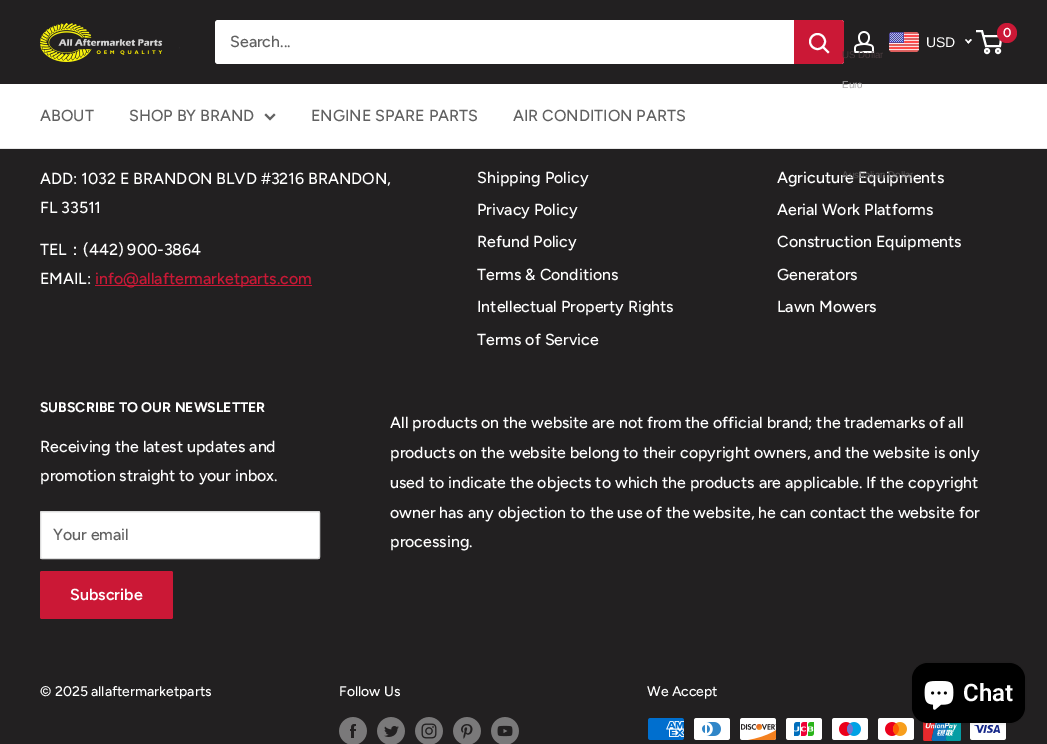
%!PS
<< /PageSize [1047 744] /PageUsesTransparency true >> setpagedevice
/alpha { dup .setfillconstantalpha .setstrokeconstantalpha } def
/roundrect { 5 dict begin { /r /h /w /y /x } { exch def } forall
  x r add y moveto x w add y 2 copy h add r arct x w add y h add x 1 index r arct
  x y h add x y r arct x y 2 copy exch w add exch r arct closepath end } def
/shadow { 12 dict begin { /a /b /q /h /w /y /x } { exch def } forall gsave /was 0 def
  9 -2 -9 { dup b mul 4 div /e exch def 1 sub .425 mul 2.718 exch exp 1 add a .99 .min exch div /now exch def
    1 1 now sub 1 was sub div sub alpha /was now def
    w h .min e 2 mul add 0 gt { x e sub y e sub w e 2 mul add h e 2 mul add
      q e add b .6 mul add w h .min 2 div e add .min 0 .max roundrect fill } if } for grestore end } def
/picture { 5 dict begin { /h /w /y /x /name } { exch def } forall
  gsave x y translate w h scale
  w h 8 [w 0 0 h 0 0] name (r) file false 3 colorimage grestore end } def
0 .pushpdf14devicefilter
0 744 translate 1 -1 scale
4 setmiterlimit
0.133 0.125 0.129 setrgbcolor
0 0 1047 744 rectfill
(img1.rgb) 40 23 140 39 picture
1 setgray
215 20 629 44 3 roundrect fill
/Figtree-Medium [16 0 0 -16 0 0] selectfont
0.38 setgray
230 47 moveto (Search...) show
0.796 0.094 0.212 setrgbcolor
newpath 794 20 moveto 841 20 lineto 842.5 20 844 21.5 844 23 curveto 844 61 lineto 844 62.5 842.5 64 841 64 curveto 794 64 lineto closepath fill
1 setgray
2 setlinewidth
2 setlinecap
newpath 828 52 moveto 823 47 lineto stroke
0 setlinecap
newpath 817.5 41.5 7.5 0 360 arc closepath stroke
(img2.rgb) 854 31 20 22 picture
newpath 987 51 2 0 360 arc closepath stroke
newpath 998 51 2 0 360 arc closepath stroke
newpath 983.5 36 moveto 1001.5 36 lineto 1000 46 lineto 986 46 lineto 982 31 lineto 976 31 lineto stroke
0.796 0.094 0.212 setrgbcolor
newpath 1007 33 10 0 360 arc closepath fill
/Figtree-SemiBold [13 0 0 -13 0 0] selectfont
1 setgray
1003 37 moveto (0) show
(img3.rgb) 889 32 30 20 picture
/LiberationSans-Regular [14 0 0 -14 0 0] selectfont
926 47 moveto (USD) show
newpath 970.5 39 moveto 972 40 lineto 968.5 43.5 lineto 967 42.5 lineto closepath fill
newpath 966 39 moveto 969.5 42.5 lineto 968.5 43.5 lineto 965 40 lineto closepath fill
/LiberationSans-Regular [9.75 0 0 -9.75 0 0] selectfont
0.282 0.227 0.239 setrgbcolor
842 58 moveto (US Dollar) show
1 setgray
0 84 1047 64 rectfill
0.675 0.671 0.675 setrgbcolor
842 88 moveto (Euro) show
/Figtree-Medium [16 0 0 -16 0 0] selectfont
1 setgray
777 183 moveto (Agricuture Equipments) show
/LiberationSans-Regular [9.75 0 0 -9.75 0 0] selectfont
0.349 0.341 0.345 setrgbcolor
842 178 moveto (Australian Dollar) show
0.91 setgray
0 148 1047 1 rectfill
/Figtree-Medium [16 0 0 -16 0 0] selectfont
0.38 setgray
40 121 moveto (ABOUT) show
129 121 moveto (SHOP BY BRAND) show
2 setlinecap
newpath 274 115 moveto 270 119 lineto 266 115 lineto stroke
311 121 moveto (ENGINE SPARE PARTS) show
513 121 moveto (AIR CONDITION PARTS) show
1 setgray
40 184 moveto (ADD: 1032 E BRANDON BLVD #3216 BRANDON,) show
40 213 moveto (FL 33511) show
40 255 moveto (TEL) show
/WenQuanYiZenHei-Medium [16 0 0 -16 0 0] selectfont
67 255 moveto (：) show
/Figtree-Medium [16 0 0 -16 0 0] selectfont
83 255 moveto (\(442\) 900-3864) show
40 284 moveto (EMAIL:) show
0.796 0.094 0.212 setrgbcolor
95 285 217 1 rectfill
95 284 moveto (info@allaftermarketparts.com) show
1 setgray
477 183 moveto (Shipping Policy) show
477 215 moveto (Privacy Policy) show
477 247 moveto (Refund Policy) show
477 280 moveto (Terms & Conditions) show
477 312 moveto (Intellectual Property Rights) show
477 345 moveto (Terms of Service) show
777 215 moveto (Aerial Work Platforms) show
777 247 moveto (Construction Equipments) show
777 280 moveto (Generators) show
777 312 moveto (Lawn Mowers) show
/Figtree-Bold [14 0 0 -14 0 0] selectfont
40 412 moveto (SUBSCRIBE TO OUR NEWSLETTER) show
/Figtree-Medium [16 0 0 -16 0 0] selectfont
40 452 moveto (Receiving the latest updates and) show
40 481 moveto (promotion straight to your inbox.) show
40 511 280 48 2 roundrect fill
0.976 setgray
newpath 42 513 moveto 318 513 lineto 319 513 319 513 319 514 curveto 319 513 319 512 318 512 curveto 42 512 lineto 41 512 lineto 41 514 lineto 41 513 41 513 42 513 curveto closepath fill
0.859 setgray
1 setlinewidth
0 setlinecap
40.5 511.5 279 47 1.5 roundrect stroke
0.38 setgray
53 540 moveto (Your email) show
0.796 0.094 0.212 setrgbcolor
40 571 133 48 2 roundrect fill
/Figtree-SemiBold [16 0 0 -16 0 0] selectfont
1 setgray
70 600 moveto (Subscribe) show
/Figtree-Medium [16 0 0 -16 0 0] selectfont
390 428 moveto (All products on the website are not from the official brand; the trademarks of all) show
390 458 moveto (products on the website belong to their copyright owners, and the website is only) show
390 488 moveto (used to indicate the objects to which the products are applicable. If the copyright) show
390 518 moveto (owner has any objection to the use of the website, he can contact the website for) show
390 547 moveto (processing.) show
/Figtree-Medium [14 0 0 -14 0 0] selectfont
40 696 moveto (© 2025 allaftermarketparts) show
339 696 moveto (Follow Us) show
(img4.rgb) 339 717 28 27 picture
(img5.rgb) 377 717 28 27 picture
(img6.rgb) 415 717 28 27 picture
(img7.rgb) 453 717 28 27 picture
(img8.rgb) 491 717 28 27 picture
647 696 moveto (We Accept) show
(img9.rgb) 648 718 36 22 picture
(img10.rgb) 694 718 36 22 picture
(img11.rgb) 740 718 36 22 picture
(img12.rgb) 786 718 36 22 picture
(img13.rgb) 832 718 36 22 picture
(img14.rgb) 878 718 36 22 picture
(img15.rgb) 923 722 38 19 picture
(img16.rgb) 970 723 36 17 picture
0 setgray
912 663 113 60 16 2.5 0.15 shadow
912 663 113 60 16 roundrect fill
(img17.rgb) 924 681 30 29 picture
/Roboto-SemiBold [24 0 0 -24 0 0] selectfont
1 setgray
963 701 moveto (Chat) show
.poppdf14devicefilter showpage
